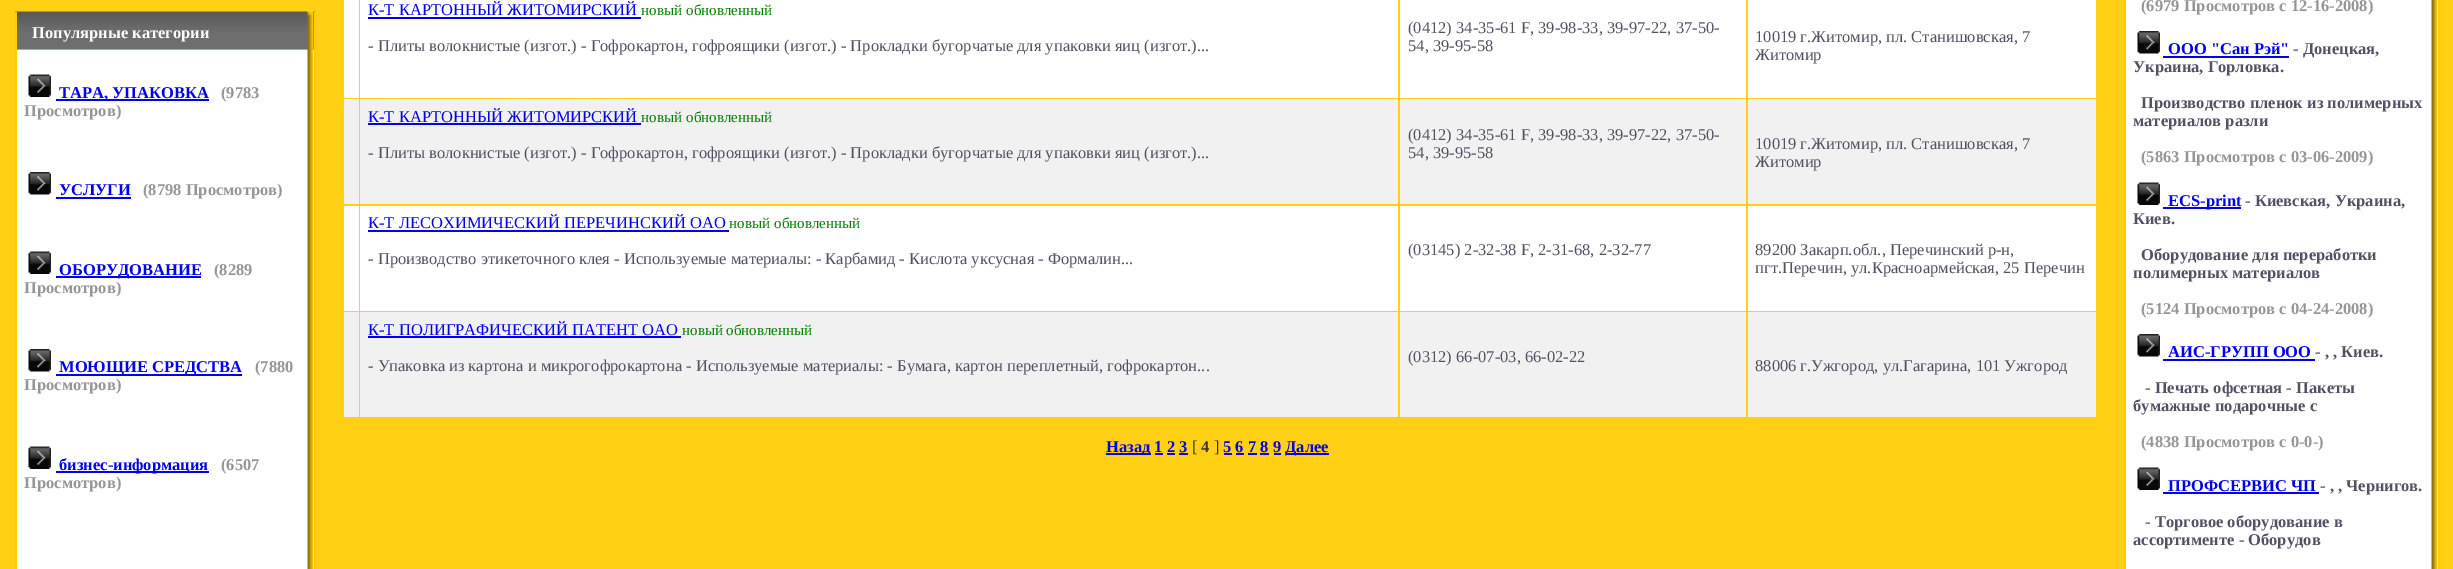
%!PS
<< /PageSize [2453 569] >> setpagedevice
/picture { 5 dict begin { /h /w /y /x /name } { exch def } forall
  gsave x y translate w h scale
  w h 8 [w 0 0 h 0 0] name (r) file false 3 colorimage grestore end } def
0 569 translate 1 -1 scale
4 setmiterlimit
1 0.816 0.075 setrgbcolor
0 0 2453 569 rectfill
0.969 0.635 0 setrgbcolor
17 49 297 1 rectfill
(img1.rgb) 15 11 300 38 picture
1 0.8 0 setrgbcolor
314 12 2 557 rectfill
15 12 2 557 rectfill
/LiberationSerif-Bold [16.5 0 0 -16.5 0 0] selectfont
1 setgray
32 38 moveto (Популярные категории) show
17 50 297 519 rectfill
(img2.rgb) 307 49 7 520 picture
(img3.rgb) 28 74 23 23 picture
0 0 0.933 setrgbcolor
56 99 153 2 rectfill
59 98 moveto (ТАРА, УПАКОВКА) show
0.584 0.584 0.596 setrgbcolor
221 98 moveto (\(9783) show
24 116 moveto (Просмотров\)) show
(img4.rgb) 28 172 23 23 picture
0 0 0.933 setrgbcolor
59 195 moveto (УСЛУГИ) show
56 197 75 2 rectfill
0.584 0.584 0.596 setrgbcolor
143 195 moveto (\(8798 Просмотров\)) show
(img3.rgb) 28 251 23 23 picture
0 0 0.933 setrgbcolor
56 276 145 2 rectfill
59 275 moveto (ОБОРУДОВАНИЕ) show
0.584 0.584 0.596 setrgbcolor
214 275 moveto (\(8289) show
24 293 moveto (Просмотров\)) show
(img4.rgb) 28 349 23 23 picture
0 0 0.933 setrgbcolor
56 374 186 2 rectfill
59 372 moveto (МОЮЩИЕ СРЕДСТВА) show
0.584 0.584 0.596 setrgbcolor
255 372 moveto (\(7880) show
24 390 moveto (Просмотров\)) show
(img3.rgb) 28 446 23 23 picture
0 0 0.933 setrgbcolor
56 471 153 2 rectfill
59 470 moveto (бизнес-информация) show
0.584 0.584 0.596 setrgbcolor
221 470 moveto (\(6507) show
24 488 moveto (Просмотров\)) show
1 setgray
344 0 15 98 rectfill
360 0 1038 98 rectfill
/LiberationSerif-Regular [16.5 0 0 -16.5 0 0] selectfont
0 0 0.933 setrgbcolor
368 15 moveto (К-Т КАРТОННЫЙ ЖИТОМИРСКИЙ) show
368 17 273 2 rectfill
/LiberationSerif-Regular [15 0 0 -15 0 0] selectfont
0 0.502 0 setrgbcolor
641 15 moveto (новый) show
686 15 moveto (обновленный) show
/LiberationSerif-Regular [16.5 0 0 -16.5 0 0] selectfont
0.322 0.318 0.388 setrgbcolor
368 51 moveto (- Плиты волокнистые \(изгот.\) - Гофрокартон, гофроящики \(изгот.\) - Прокладки бугорчатые для упаковки яиц \(изгот.\)...) show
1 setgray
1400 0 346 98 rectfill
0.322 0.318 0.388 setrgbcolor
1408 33 moveto (\(0412\) 34-35-61 F, 39-98-33, 39-97-22, 37-50-) show
1408 51 moveto (54, 39-95-58) show
1 setgray
1748 0 348 98 rectfill
0.322 0.318 0.388 setrgbcolor
1755 42 moveto (10019 г.Житомир, пл. Станишовская, 7) show
1755 60 moveto (Житомир) show
0.945 setgray
344 99 15 105 rectfill
360 99 1038 105 rectfill
0 0 0.933 setrgbcolor
368 122 moveto (К-Т КАРТОННЫЙ ЖИТОМИРСКИЙ) show
368 123 273 2 rectfill
/LiberationSerif-Regular [15 0 0 -15 0 0] selectfont
0 0.502 0 setrgbcolor
641 122 moveto (новый) show
686 122 moveto (обновленный) show
/LiberationSerif-Regular [16.5 0 0 -16.5 0 0] selectfont
0.322 0.318 0.388 setrgbcolor
368 158 moveto (- Плиты волокнистые \(изгот.\) - Гофрокартон, гофроящики \(изгот.\) - Прокладки бугорчатые для упаковки яиц \(изгот.\)...) show
0.945 setgray
1400 99 346 105 rectfill
0.322 0.318 0.388 setrgbcolor
1408 140 moveto (\(0412\) 34-35-61 F, 39-98-33, 39-97-22, 37-50-) show
1408 158 moveto (54, 39-95-58) show
0.945 setgray
1748 99 348 105 rectfill
0.322 0.318 0.388 setrgbcolor
1755 149 moveto (10019 г.Житомир, пл. Станишовская, 7) show
1755 167 moveto (Житомир) show
1 setgray
344 206 15 105 rectfill
360 206 1038 105 rectfill
0 0 0.933 setrgbcolor
368 228 moveto (К-Т ЛЕСОХИМИЧЕСКИЙ ПЕРЕЧИНСКИЙ ОАО) show
368 230 361 2 rectfill
/LiberationSerif-Regular [15 0 0 -15 0 0] selectfont
0 0.502 0 setrgbcolor
729 228 moveto (новый) show
774 228 moveto (обновленный) show
/LiberationSerif-Regular [16.5 0 0 -16.5 0 0] selectfont
0.322 0.318 0.388 setrgbcolor
368 264 moveto (- Производство этикеточного клея - Используемые материалы: - Карбамид - Кислота уксусная - Формалин...) show
1 setgray
1400 206 346 105 rectfill
0.322 0.318 0.388 setrgbcolor
1408 255 moveto (\(03145\) 2-32-38 F, 2-31-68, 2-32-77) show
1 setgray
1748 206 348 105 rectfill
0.322 0.318 0.388 setrgbcolor
1755 255 moveto (89200 Закарп.обл., Перечинский р-н,) show
1755 273 moveto (пгт.Перечин, ул.Красноармейская, 25 Перечин) show
0.945 setgray
344 312 15 105 rectfill
360 312 1038 105 rectfill
0 0 0.933 setrgbcolor
368 335 moveto (К-Т ПОЛИГРАФИЧЕСКИЙ ПАТЕНТ ОАО) show
368 336 313 2 rectfill
/LiberationSerif-Regular [15 0 0 -15 0 0] selectfont
0 0.502 0 setrgbcolor
682 335 moveto (новый) show
726 335 moveto (обновленный) show
/LiberationSerif-Regular [16.5 0 0 -16.5 0 0] selectfont
0.322 0.318 0.388 setrgbcolor
368 371 moveto (- Упаковка из картона и микрогофрокартона - Используемые материалы: - Бумага, картон переплетный, гофрокартон...) show
0.945 setgray
1400 312 346 105 rectfill
0.322 0.318 0.388 setrgbcolor
1408 362 moveto (\(0312\) 66-07-03, 66-02-22) show
0.945 setgray
1748 312 348 105 rectfill
0.322 0.318 0.388 setrgbcolor
1755 371 moveto (88006 г.Ужгород, ул.Гагарина, 101 Ужгород) show
0 0 0.933 setrgbcolor
1106 453 45 2 rectfill
/LiberationSerif-Bold [16.5 0 0 -16.5 0 0] selectfont
1106 452 moveto (Назад 1 2 3) show
/LiberationSerif-Regular [16.5 0 0 -16.5 0 0] selectfont
0.2 setgray
1192 452 moveto ([) show
/LiberationSerif-Bold [16.5 0 0 -16.5 0 0] selectfont
1201 452 moveto (4) show
/LiberationSerif-Regular [16.5 0 0 -16.5 0 0] selectfont
1214 452 moveto (]) show
/LiberationSerif-Bold [16.5 0 0 -16.5 0 0] selectfont
0 0 0.933 setrgbcolor
1223 452 moveto (5 6 7 8 9) show
1224 453 8 2 rectfill
1286 453 43 2 rectfill
1285 452 moveto (Далее) show
1155 453 8 2 rectfill
1167 453 8 2 rectfill
1179 453 9 2 rectfill
1236 453 8 2 rectfill
1248 453 9 2 rectfill
1260 453 9 2 rectfill
1274 453 7 2 rectfill
1 setgray
2126 0 312 569 rectfill
(img5.rgb) 2431 0 7 569 picture
1 0.8 0 setrgbcolor
2438 0 2 569 rectfill
2124 0 2 569 rectfill
0.584 0.584 0.596 setrgbcolor
2141 11 moveto (\(6979 Просмотров с 12-16-2008\)) show
(img6.rgb) 2137 31 23 23 picture
0 0 0.933 setrgbcolor
2168 54 moveto (ООО "Сан Рэй") show
2163 56 126 2 rectfill
0.322 0.318 0.388 setrgbcolor
2293 54 moveto (- Донецкая,) show
2133 72 moveto (Украина, Горловка.) show
2141 108 moveto (Производство пленок из полимерных) show
2133 126 moveto (материалов разли) show
0.584 0.584 0.596 setrgbcolor
2141 162 moveto (\(5863 Просмотров с 03-06-2009\)) show
(img7.rgb) 2137 182 23 23 picture
0 0 0.933 setrgbcolor
2163 207 78 2 rectfill
2168 206 moveto (ECS-print) show
0.322 0.318 0.388 setrgbcolor
2245 206 moveto (- Киевская, Украина,) show
2133 224 moveto (Киев.) show
2141 260 moveto (Оборудование для переработки) show
2133 278 moveto (полимерных материалов) show
0.584 0.584 0.596 setrgbcolor
2141 314 moveto (\(5124 Просмотров с 04-24-2008\)) show
(img6.rgb) 2137 334 23 23 picture
0 0 0.933 setrgbcolor
2168 357 moveto (АИС-ГРУПП ООО) show
0.322 0.318 0.388 setrgbcolor
2315 357 moveto (- , , Киев.) show
0 0 0.933 setrgbcolor
2163 359 152 2 rectfill
0.322 0.318 0.388 setrgbcolor
2145 393 moveto (- Печать офсетная - Пакеты) show
2133 411 moveto (бумажные подарочные с) show
0.584 0.584 0.596 setrgbcolor
2141 447 moveto (\(4838 Просмотров с 0-0-\)) show
(img7.rgb) 2137 467 23 23 picture
0 0 0.933 setrgbcolor
2168 491 moveto (ПРОФСЕРВИС ЧП) show
0.322 0.318 0.388 setrgbcolor
2320 491 moveto (- , , Чернигов.) show
0 0 0.933 setrgbcolor
2163 492 156 2 rectfill
0.322 0.318 0.388 setrgbcolor
2145 527 moveto (- Торговое оборудование в) show
2133 545 moveto (ассортименте - Оборудов) show
showpage
